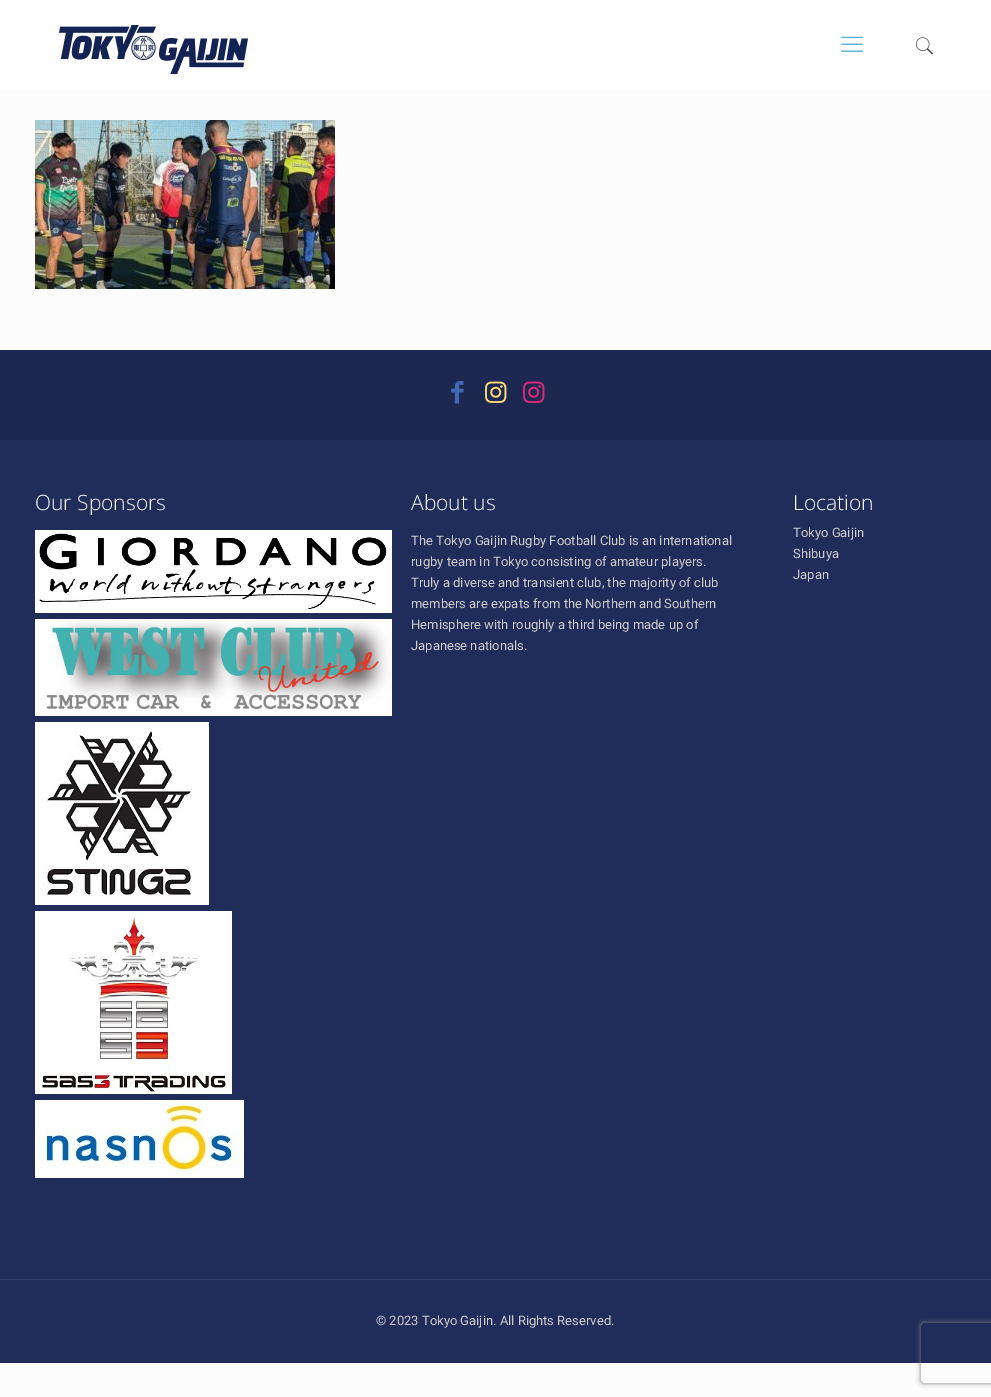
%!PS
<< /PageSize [991 1397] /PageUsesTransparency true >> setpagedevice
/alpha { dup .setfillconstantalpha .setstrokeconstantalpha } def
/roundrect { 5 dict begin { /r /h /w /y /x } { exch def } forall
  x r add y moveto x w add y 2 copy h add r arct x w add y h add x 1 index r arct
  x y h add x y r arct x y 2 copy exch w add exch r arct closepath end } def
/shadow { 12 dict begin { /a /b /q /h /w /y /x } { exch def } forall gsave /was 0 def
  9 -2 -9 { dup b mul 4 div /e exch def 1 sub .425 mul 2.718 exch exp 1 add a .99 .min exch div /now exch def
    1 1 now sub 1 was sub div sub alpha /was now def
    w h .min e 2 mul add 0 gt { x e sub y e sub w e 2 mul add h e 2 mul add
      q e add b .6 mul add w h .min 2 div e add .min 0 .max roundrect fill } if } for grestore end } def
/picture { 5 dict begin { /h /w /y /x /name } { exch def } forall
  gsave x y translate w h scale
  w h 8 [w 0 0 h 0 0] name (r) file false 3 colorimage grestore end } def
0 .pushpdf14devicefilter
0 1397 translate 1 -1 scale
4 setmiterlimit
0.988 setgray
0 0 991 1397 rectfill
1 setgray
0 0 991 90 rectfill
(img1.rgb) 59 25 189 49 picture
(img2.rgb) 841 36 22 16 picture
(img3.rgb) 915 37 19 18 picture
(img4.rgb) 35 120 300 169 picture
0.125 0.173 0.353 setrgbcolor
0 440 991 923 rectfill
0.114 0.157 0.318 setrgbcolor
0 350 991 90 rectfill
(img5.rgb) 451 381 13 23 picture
(img6.rgb) 485 381 22 22 picture
(img7.rgb) 523 381 22 22 picture
/OpenSans-Light [21 0 0 -21 0 0] selectfont
1 setgray
35 510 moveto (Our Sponsors) show
(img8.rgb) 35 530 357 83 picture
(img9.rgb) 35 619 357 97 picture
(img10.rgb) 35 722 174 183 picture
(img11.rgb) 35 911 197 183 picture
(img12.rgb) 35 1100 209 78 picture
411 510 moveto (About us) show
/Roboto-Regular [13 0 0 -13 0 0] selectfont
0.8 setgray
411 545 moveto (The Tokyo Gaijin Rugby Football Club is an international) show
411 566 moveto (rugby team in Tokyo consisting of amateur players.) show
411 587 moveto (Truly a diverse and transient club, the majority of club) show
411 608 moveto (members are expats from the Northern and Southern) show
411 629 moveto (Hemisphere with roughly a third being made up of) show
411 650 moveto (Japanese nationals.) show
/OpenSans-Light [21 0 0 -21 0 0] selectfont
1 setgray
793 510 moveto (Location) show
/Roboto-Regular [13 0 0 -13 0 0] selectfont
0.8 setgray
793 537 moveto (Tokyo Gaijin) show
793 558 moveto (Shibuya) show
793 579 moveto (Japan) show
0.212 0.255 0.42 setrgbcolor
0 1279 991 1 rectfill
0.8 setgray
376 1325 moveto (© 2023 Tokyo Gaijin. All Rights Reserved.) show
gsave
newpath 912 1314 moveto 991 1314 lineto 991 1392 lineto 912 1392 lineto closepath 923 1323 moveto 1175 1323 lineto 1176 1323 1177 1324 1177 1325 curveto 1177 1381 lineto 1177 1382 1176 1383 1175 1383 curveto 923 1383 lineto 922 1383 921 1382 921 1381 curveto 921 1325 lineto 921 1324 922 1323 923 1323 curveto closepath eoclip newpath
0.502 setgray
921 1323 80 60 2 2.5 1 shadow
grestore
.poppdf14devicefilter showpage
